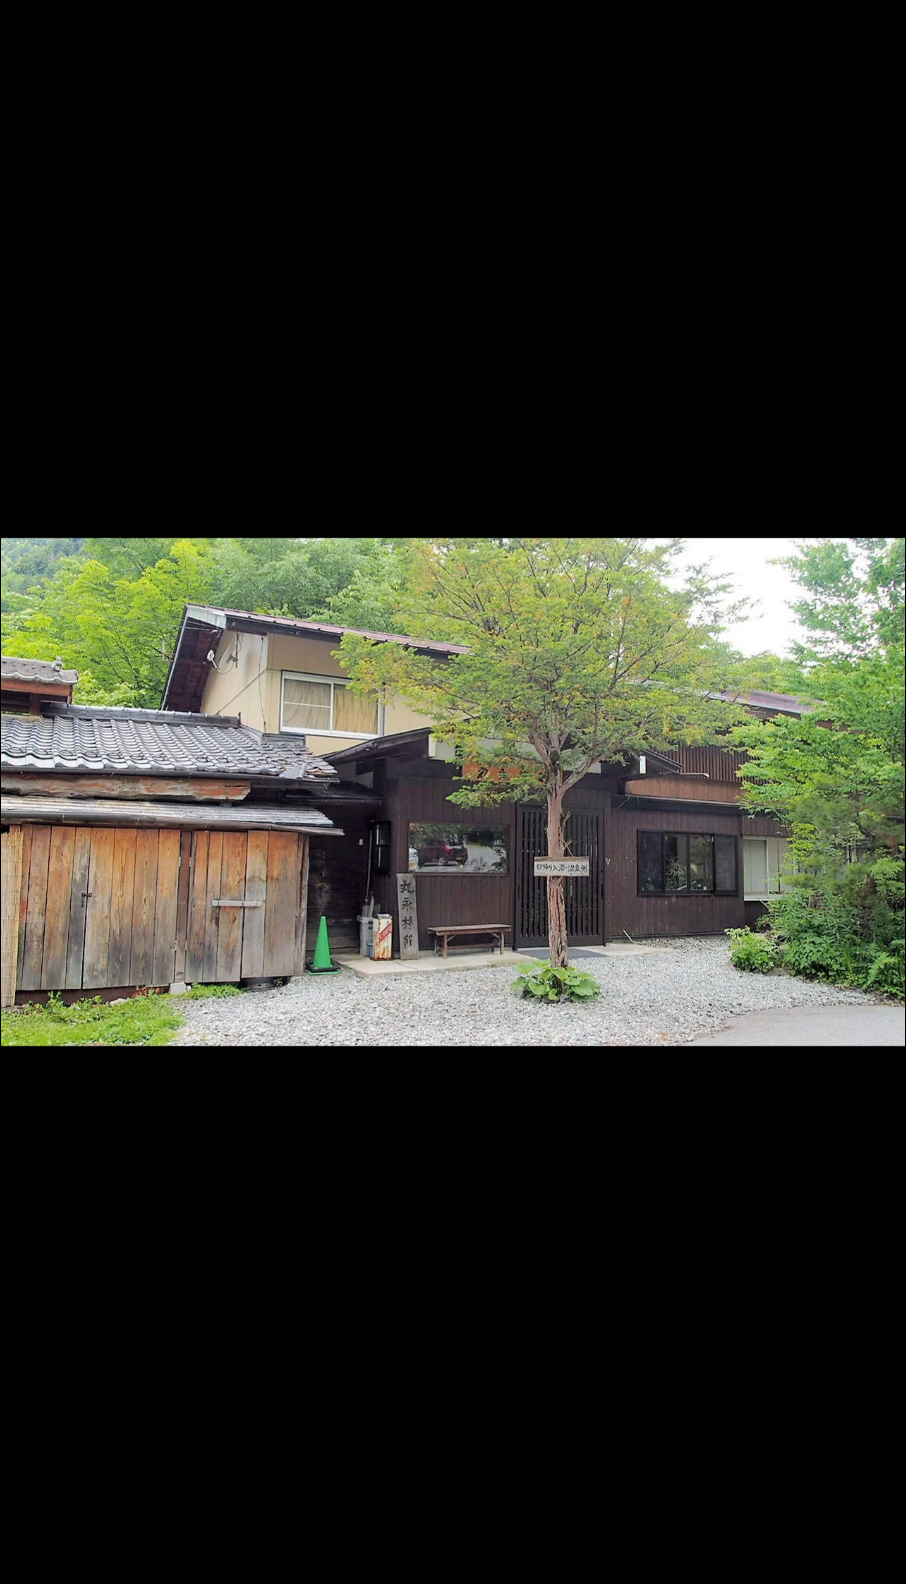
%!PS
<< /PageSize [906 1584] >> setpagedevice
/picture { 5 dict begin { /h /w /y /x /name } { exch def } forall
  gsave x y translate w h scale
  w h 8 [w 0 0 h 0 0] name (r) file false 3 colorimage grestore end } def
0 1584 translate 1 -1 scale
4 setmiterlimit
0 setgray
0 0 906 1584 rectfill
(img1.rgb) 1 537 904 510 picture
showpage
